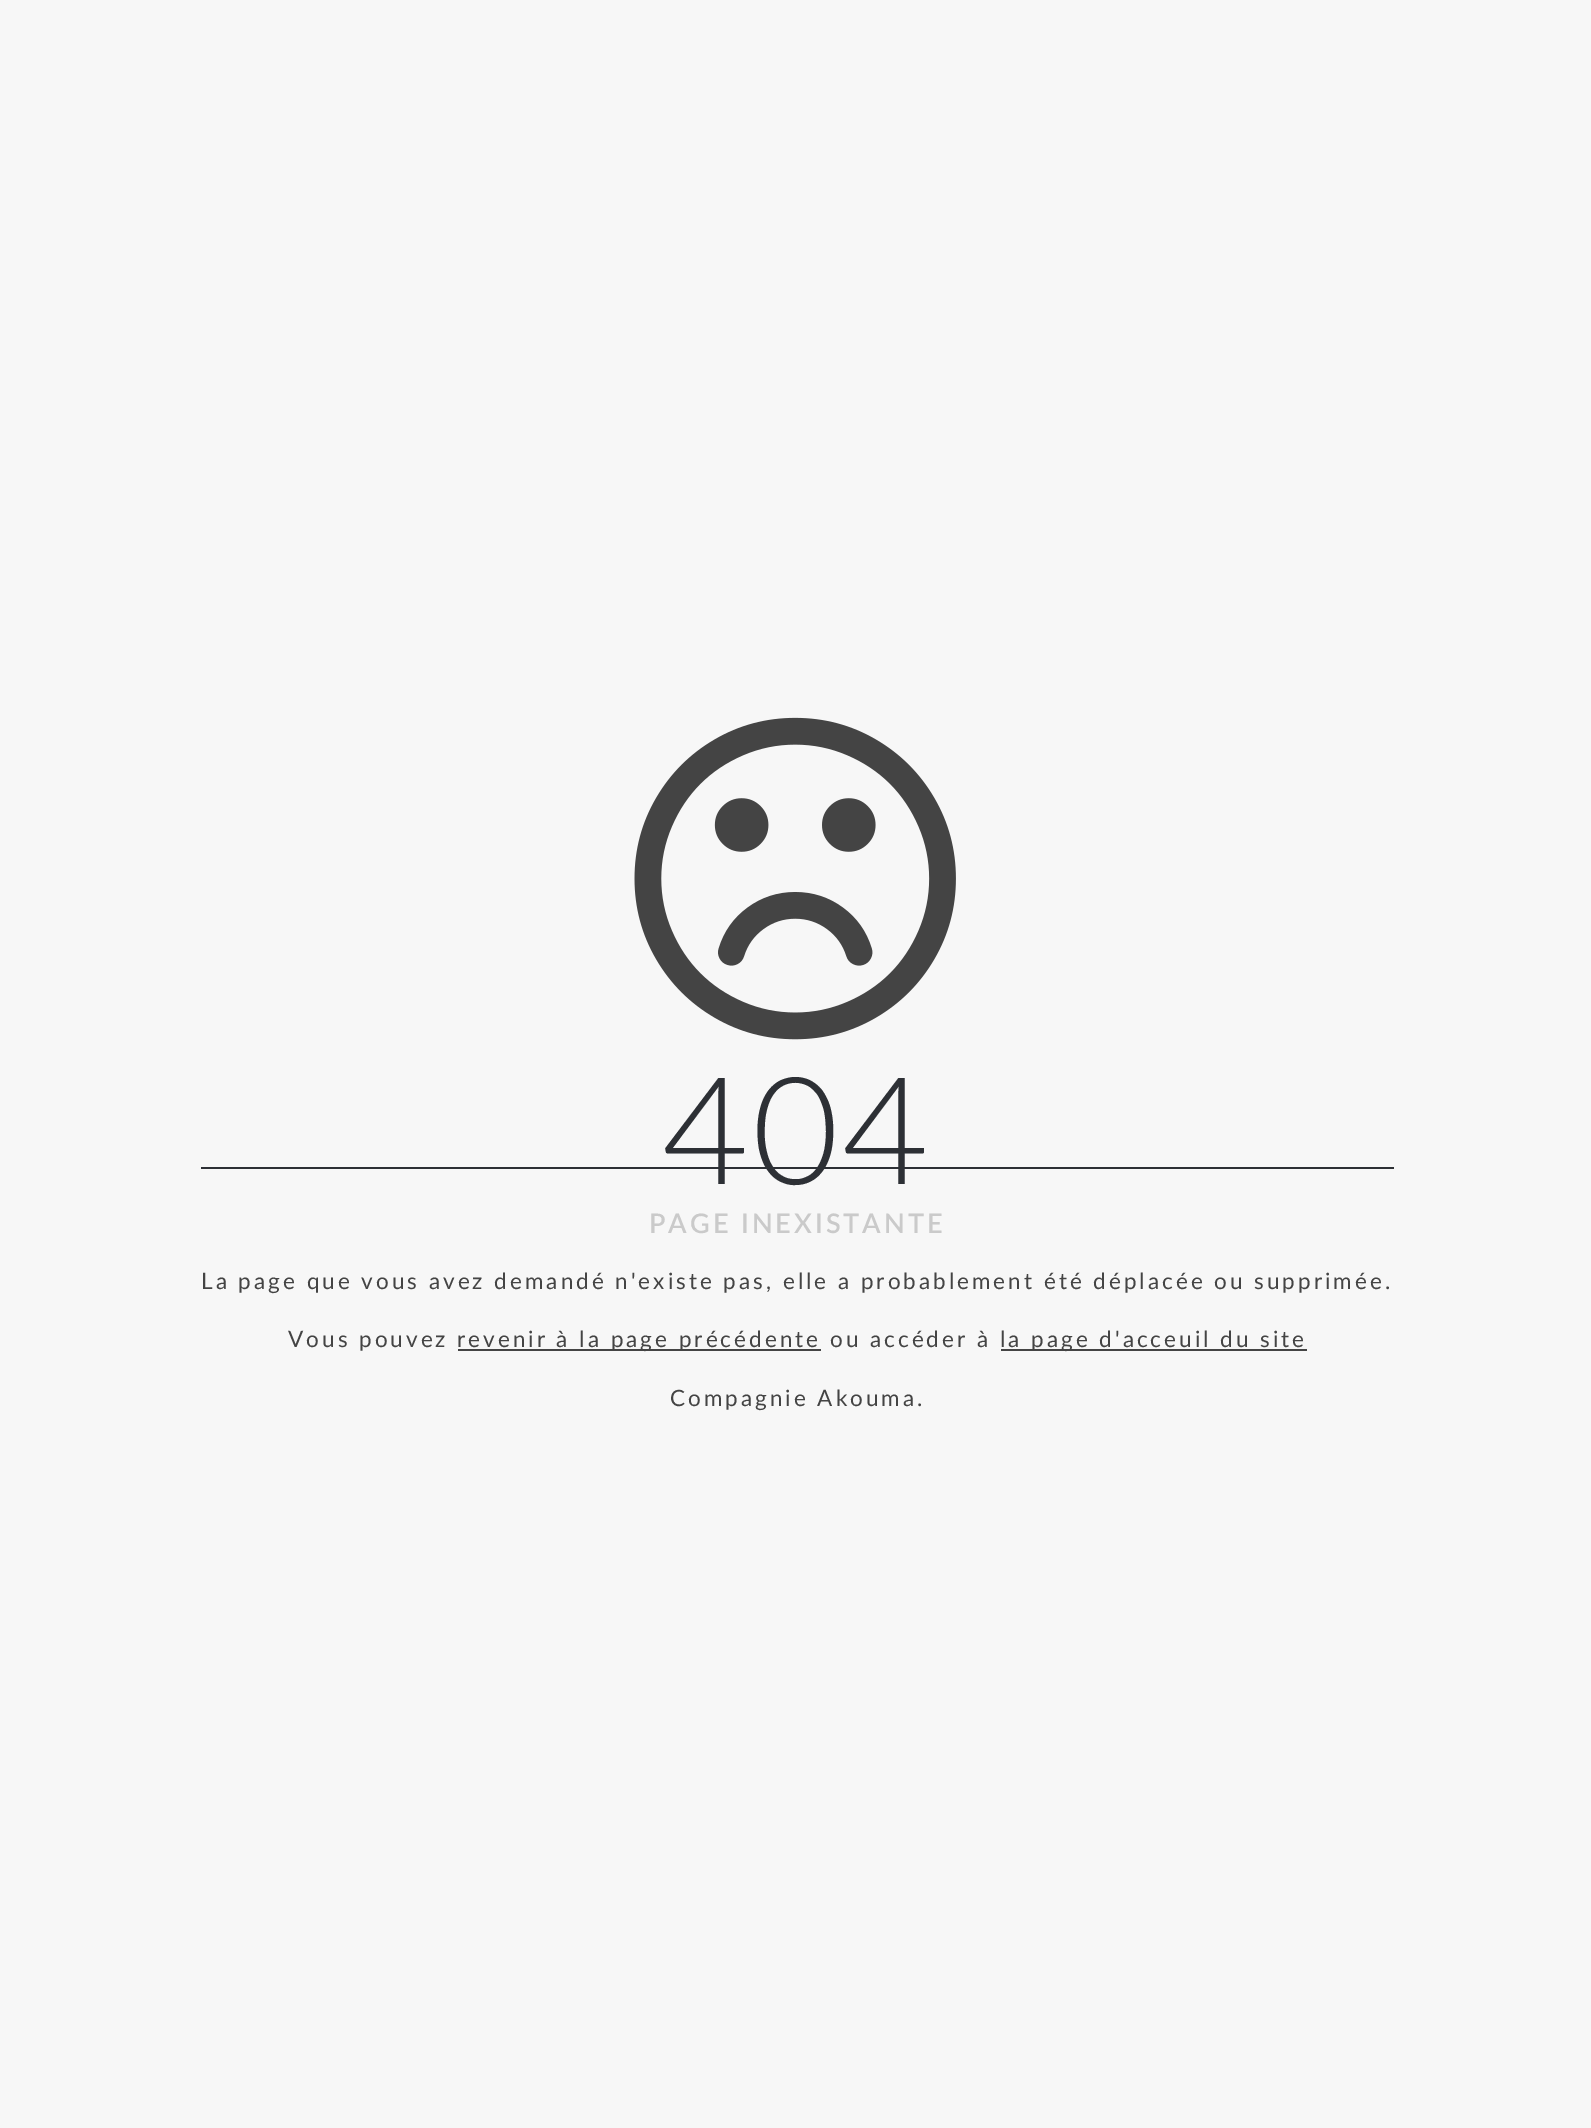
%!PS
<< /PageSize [1591 2128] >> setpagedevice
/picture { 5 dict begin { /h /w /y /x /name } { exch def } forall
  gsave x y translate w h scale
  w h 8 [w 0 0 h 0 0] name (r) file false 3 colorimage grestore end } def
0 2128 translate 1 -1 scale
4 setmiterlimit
0.969 setgray
0 0 1591 2128 rectfill
(img1.rgb) 634 717 322 323 picture
0.176 0.188 0.208 setrgbcolor
201 1167 1193 2 rectfill
/Lato-Light [150 0 0 -150 0 0] selectfont
662 1184 moveto 3 0 (404) ashow
/Lato-SemiBold [27 0 0 -27 0 0] selectfont
0.792 setgray
649 1233 moveto 3 0 (PAGE INEXISTANTE) ashow
/Lato-Regular [22.5 0 0 -22.5 0 0] selectfont
0.267 setgray
201 1289 moveto 3 0 (La page que vous avez demandé n'existe pas, elle a probablement été déplacée ou supprimée.) ashow
288 1347 moveto 3 0 (Vous pouvez) ashow
458 1349 363 2 rectfill
457 1347 moveto 3 0 (revenir à la page précédente ou accéder à) ashow
1001 1349 306 2 rectfill
1000 1347 moveto 3 0 (la page d'acceuil du site) ashow
670 1406 moveto 3 0 (Compagnie Akouma.) ashow
showpage
